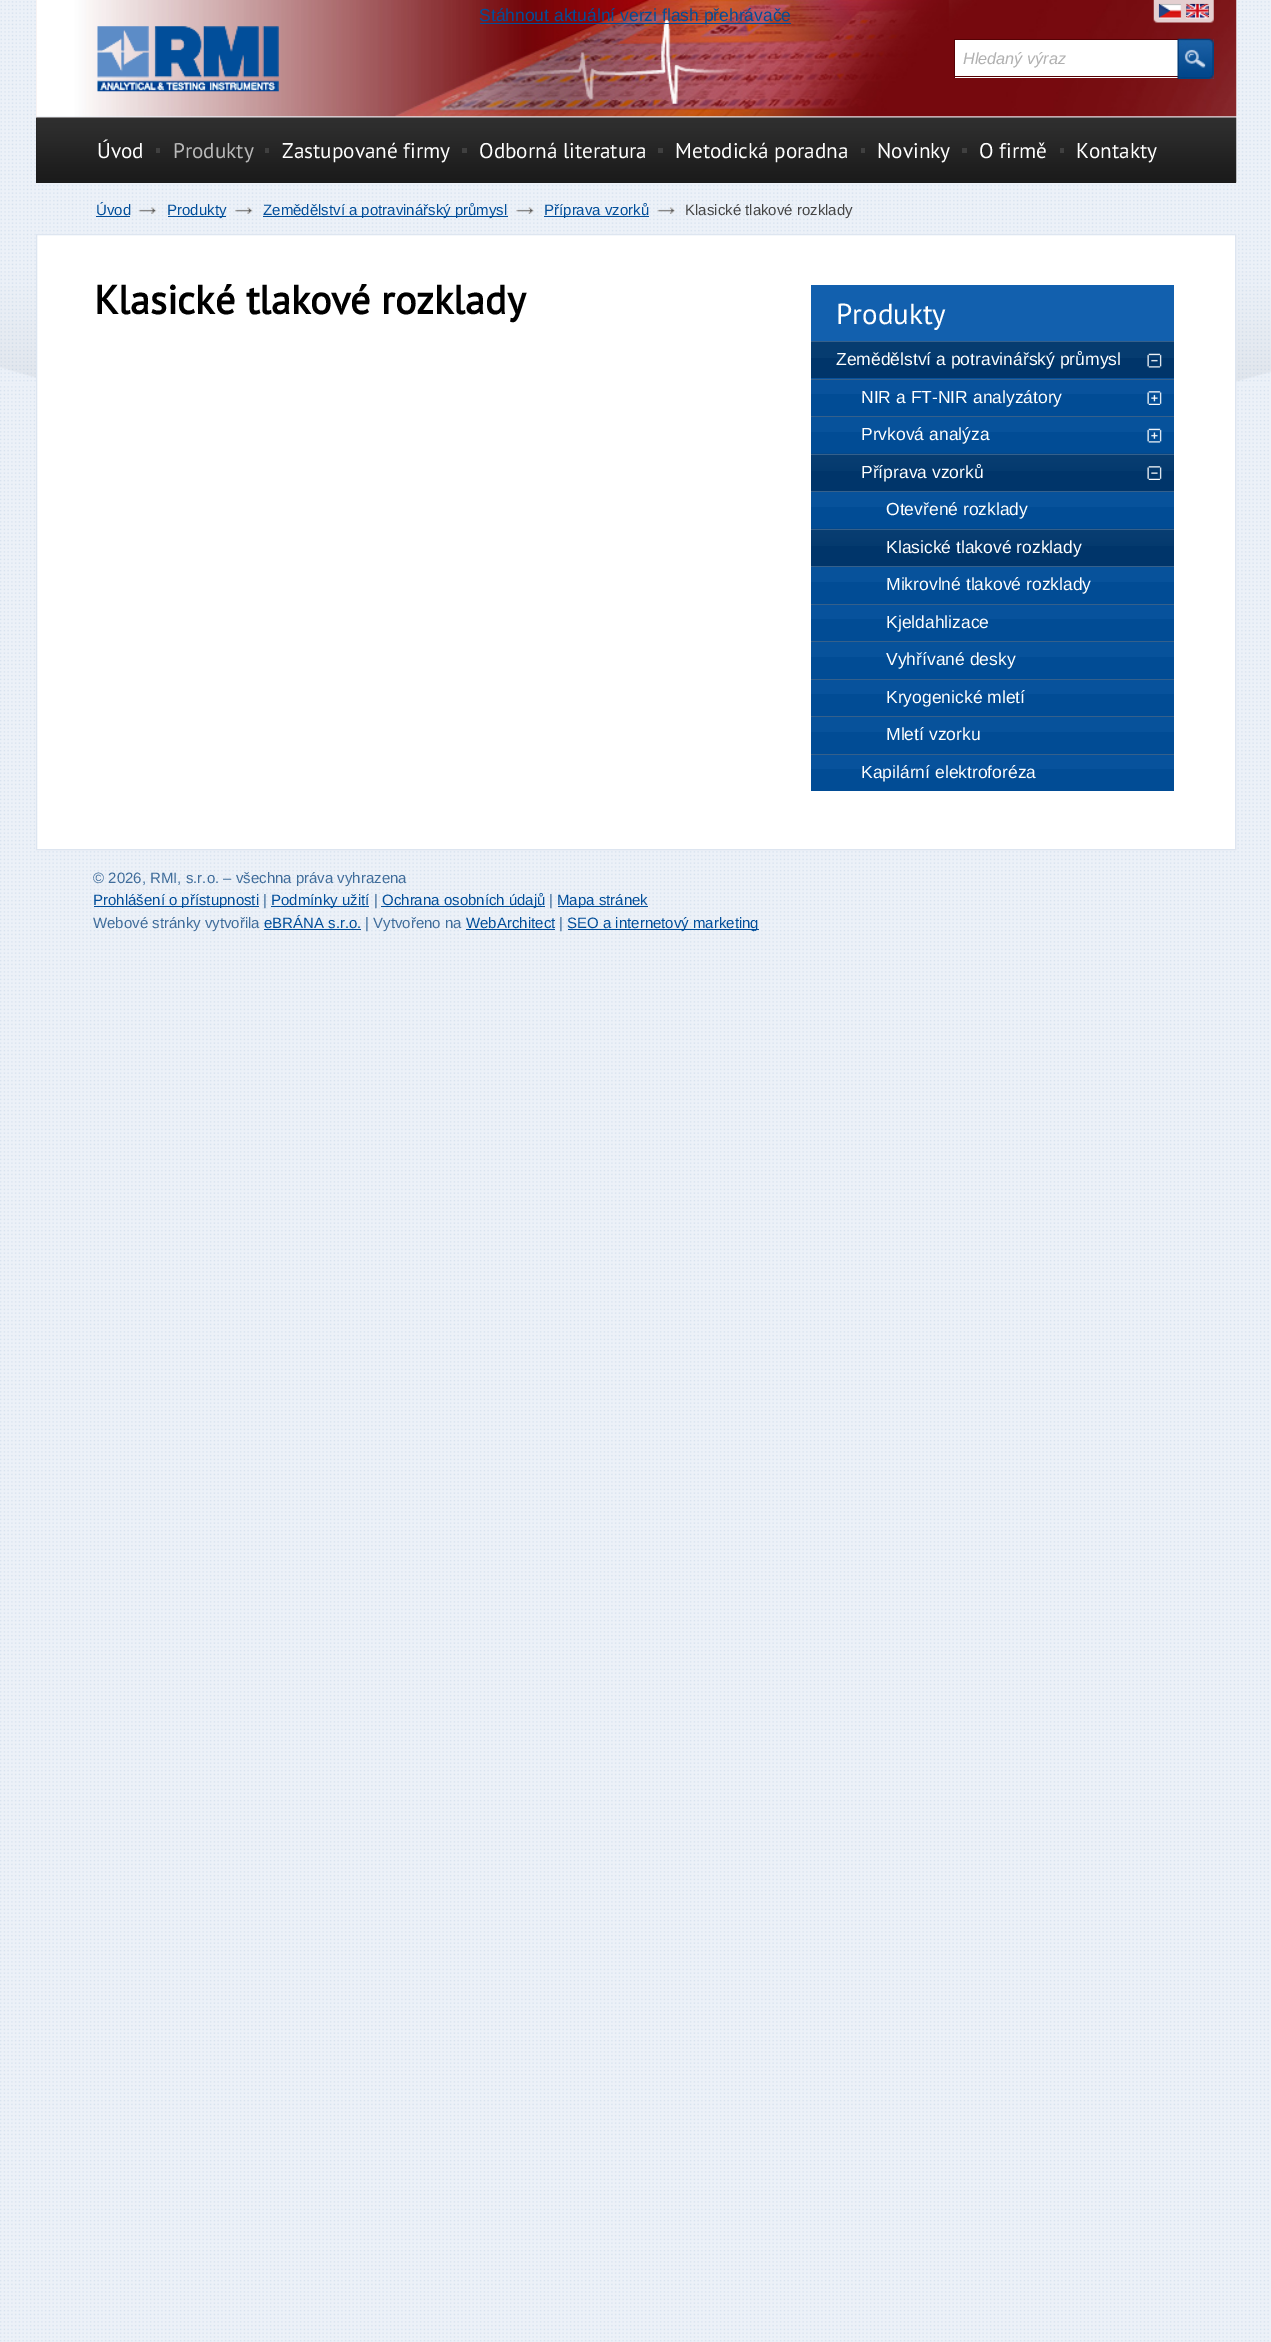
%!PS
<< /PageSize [1271 2342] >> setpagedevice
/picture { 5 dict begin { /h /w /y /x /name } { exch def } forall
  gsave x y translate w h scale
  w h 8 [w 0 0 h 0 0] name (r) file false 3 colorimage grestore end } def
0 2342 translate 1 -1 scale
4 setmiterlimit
0.925 0.945 0.973 setrgbcolor
0 0 1271 2342 rectfill
(img1.rgb) 0 998 1269 1344 picture
(img2.rgb) 0 383 1269 615 picture
(img3.rgb) 0 0 1271 384 picture
0.894 0.816 0.816 setrgbcolor
36 0 1200 118 rectfill
(img4.rgb) 36 0 1201 118 picture
0.004 0.306 0.604 setrgbcolor
480 23 311 1 rectfill
/LiberationSans-Regular [17.5 0 0 -17.5 0 0] selectfont
479 21 moveto (Stáhnout aktuální verzi flash přehrávače) show
(img5.rgb) 1153 0 61 23 picture
(img6.rgb) 1158 3 24 16 picture
gsave
1186 4 23 15 rectclip
/LiberationSans-Regular [12 0 0 -12 0 0] selectfont
0 setgray
1207 15 moveto (l) show
grestore
0 setgray
1186 16 23 1 rectfill
(img7.rgb) 1186 3 23 16 picture
(img8.rgb) 97 26 182 66 picture
1 setgray
955 40 223 38 rectfill
0.341 0.008 0.02 setrgbcolor
954 39 224 1 rectfill
954 76 224 1 rectfill
954 39 1 39 rectfill
/LiberationSans-Italic [16.25 0 0 -16.25 0 0] selectfont
0.69 setgray
963 64 moveto (Hledaný výraz) show
0.102 0.376 0.643 setrgbcolor
1178 39 36 40 rectfill
(img9.rgb) 1177 38 37 41 picture
0.106 setgray
36 118 1200 65 rectfill
(img10.rgb) 36 117 1201 66 picture
0.251 setgray
156 148 4 5 rectfill
/PTSans-Regular [21.25 0 0 -21.25 0 0] selectfont
1 setgray
97 158 moveto (Úvod) show
0.251 setgray
265 148 4 5 rectfill
0.722 setgray
173 158 moveto (Produkty) show
0.251 setgray
462 148 5 5 rectfill
1 setgray
282 158 moveto (Zastupované firmy) show
0.251 setgray
658 148 5 5 rectfill
1 setgray
479 158 moveto (Odborná literatura) show
0.251 setgray
861 148 4 5 rectfill
1 setgray
675 158 moveto (Metodická poradna) show
0.251 setgray
962 148 5 5 rectfill
1 setgray
877 158 moveto (Novinky) show
0.251 setgray
1060 148 4 5 rectfill
1 setgray
979 158 moveto (O firmě) show
1076 158 moveto (Kontakty) show
newpath 36.5 234.5 moveto 1235.5 234.5 lineto 1235.5 849.5 lineto 36.5 849.5 lineto closepath gsave fill grestore
0.867 0.898 0.941 setrgbcolor
stroke
/LiberationSans-Regular [15 0 0 -15 0 0] selectfont
0.004 0.306 0.604 setrgbcolor
96 215 moveto (Úvod) show
96 216 34 1 rectfill
(img11.rgb) 138 207 19 7 picture
168 216 58 1 rectfill
167 215 moveto (Produkty) show
(img12.rgb) 235 207 18 7 picture
263 216 245 1 rectfill
263 215 moveto (Zemědělství a potravinářský průmysl) show
(img13.rgb) 516 207 18 7 picture
544 216 105 1 rectfill
544 215 moveto (Příprava vzorků) show
(img14.rgb) 657 207 18 7 picture
0.271 setgray
685 215 moveto (Klasické tlakové rozklady) show
/PTSans-Bold [40 0 0 -40 0 0] selectfont
0 setgray
94 314 moveto (Klasické tlakové rozklady) show
0.071 0.376 0.682 setrgbcolor
811 285 363 56 rectfill
/PTSans-Regular [29 0 0 -29 0 0] selectfont
1 setgray
836 324 moveto (Produkty) show
0 0.208 0.416 setrgbcolor
811 358 363 208 rectfill
0.024 0.235 0.439 setrgbcolor
811 342 363 16 rectfill
0.208 0.376 0.545 setrgbcolor
811 341 363 1 rectfill
/LiberationSans-Regular [17.5 0 0 -17.5 0 0] selectfont
1 setgray
836 365 moveto (Zemědělství a potravinářský průmysl) show
(img15.rgb) 1147 353 15 15 picture
0.004 0.298 0.584 setrgbcolor
811 394 363 22 rectfill
0.031 0.322 0.612 setrgbcolor
811 378 363 16 rectfill
0.208 0.376 0.545 setrgbcolor
811 379 363 1 rectfill
1 setgray
861 403 moveto (NIR a FT-NIR analyzátory) show
(img16.rgb) 1147 391 15 14 picture
0.004 0.298 0.584 setrgbcolor
811 432 363 22 rectfill
0.027 0.322 0.608 setrgbcolor
811 417 363 15 rectfill
0.208 0.376 0.545 setrgbcolor
811 416 363 1 rectfill
1 setgray
861 440 moveto (Prvková analýza) show
(img17.rgb) 1147 428 15 15 picture
(img18.rgb) 811 453 363 18 picture
0.208 0.376 0.545 setrgbcolor
811 454 363 1 rectfill
1 setgray
861 478 moveto (Příprava vzorků) show
(img19.rgb) 1147 466 15 14 picture
0.004 0.298 0.584 setrgbcolor
811 507 363 22 rectfill
0.027 0.322 0.608 setrgbcolor
811 492 363 15 rectfill
0.208 0.376 0.545 setrgbcolor
811 491 363 1 rectfill
1 setgray
886 515 moveto (Otevřené rozklady) show
(img18.rgb) 811 528 363 18 picture
0.208 0.376 0.545 setrgbcolor
811 529 363 1 rectfill
1 setgray
886 553 moveto (Klasické tlakové rozklady) show
0.004 0.298 0.584 setrgbcolor
811 582 363 22 rectfill
0.027 0.322 0.608 setrgbcolor
811 567 363 15 rectfill
0.208 0.376 0.545 setrgbcolor
811 566 363 1 rectfill
1 setgray
886 590 moveto (Mikrovlné tlakové rozklady) show
0.004 0.298 0.584 setrgbcolor
811 619 363 22 rectfill
0.027 0.322 0.612 setrgbcolor
811 605 363 14 rectfill
0.208 0.376 0.545 setrgbcolor
811 604 363 1 rectfill
1 setgray
886 628 moveto (Kjeldahlizace) show
0.004 0.298 0.584 setrgbcolor
811 657 363 22 rectfill
0.027 0.322 0.608 setrgbcolor
811 642 363 15 rectfill
0.208 0.376 0.545 setrgbcolor
811 641 363 1 rectfill
1 setgray
886 665 moveto (Vyhřívané desky) show
0.004 0.298 0.584 setrgbcolor
811 694 363 22 rectfill
0.027 0.322 0.612 setrgbcolor
811 680 363 14 rectfill
0.208 0.376 0.545 setrgbcolor
811 679 363 1 rectfill
1 setgray
886 703 moveto (Kryogenické mletí) show
0.004 0.298 0.584 setrgbcolor
811 732 363 22 rectfill
0.027 0.322 0.608 setrgbcolor
811 717 363 15 rectfill
0.208 0.376 0.545 setrgbcolor
811 716 363 1 rectfill
1 setgray
886 740 moveto (Mletí vzorku) show
0.004 0.298 0.584 setrgbcolor
811 769 363 22 rectfill
0.027 0.322 0.612 setrgbcolor
811 755 363 14 rectfill
0.208 0.376 0.545 setrgbcolor
811 754 363 1 rectfill
1 setgray
861 778 moveto (Kapilární elektroforéza) show
/LiberationSans-Regular [15 0 0 -15 0 0] selectfont
0.251 0.427 0.608 setrgbcolor
93 883 moveto (© 2026, RMI, s.r.o. – všechna práva vyhrazena) show
0.004 0.306 0.604 setrgbcolor
94 906 165 1 rectfill
93 905 moveto (Prohlášení o přístupnosti) show
0.251 0.427 0.608 setrgbcolor
263 905 moveto (|) show
0.004 0.306 0.604 setrgbcolor
271 906 98 1 rectfill
271 905 moveto (Podmínky užití) show
0.251 0.427 0.608 setrgbcolor
374 905 moveto (|) show
0.004 0.306 0.604 setrgbcolor
381 906 164 1 rectfill
382 905 moveto (Ochrana osobních údajů) show
0.251 0.427 0.608 setrgbcolor
549 905 moveto (|) show
0.004 0.306 0.604 setrgbcolor
558 906 90 1 rectfill
557 905 moveto (Mapa stránek) show
0.251 0.427 0.608 setrgbcolor
93 928 moveto (Webové stránky vytvořila) show
0.004 0.306 0.604 setrgbcolor
264 928 moveto (eBRÁNA s.r.o.) show
264 929 97 1 rectfill
0.251 0.427 0.608 setrgbcolor
365 928 moveto (| Vytvořeno na) show
0.004 0.306 0.604 setrgbcolor
466 928 moveto (WebArchitect) show
466 929 89 1 rectfill
0.251 0.427 0.608 setrgbcolor
559 928 moveto (|) show
0.004 0.306 0.604 setrgbcolor
568 929 191 1 rectfill
567 928 moveto (SEO a internetový marketing) show
showpage
